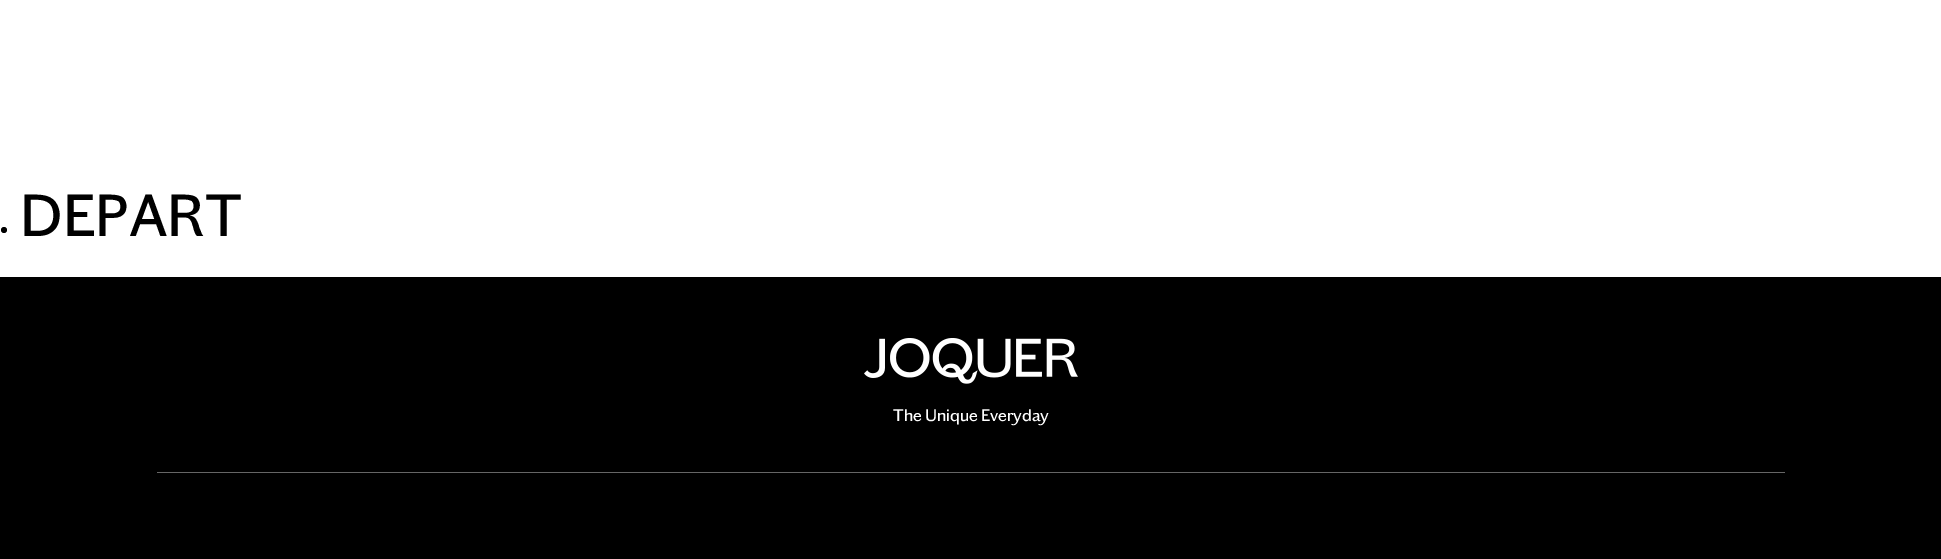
%!PS
<< /PageSize [1941 559] >> setpagedevice
/picture { 5 dict begin { /h /w /y /x /name } { exch def } forall
  gsave x y translate w h scale
  w h 8 [w 0 0 h 0 0] name (r) file false 3 colorimage grestore end } def
0 559 translate 1 -1 scale
4 setmiterlimit
1 setgray
0 0 1941 559 rectfill
0 setgray
newpath 4 230 3 0 360 arc closepath fill
/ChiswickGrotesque-Regular [60 0 0 -60 0 0] selectfont
20 236 moveto (DEPART) show
0 277 1941 282 rectfill
0.4 setgray
157 472 1628 1 rectfill
(img1.rgb) 864 338 214 46 picture
/ChiswickGrotesque-Regular [17 0 0 -17 0 0] selectfont
1 setgray
893 421 moveto (The Unique Everyday) show
showpage
